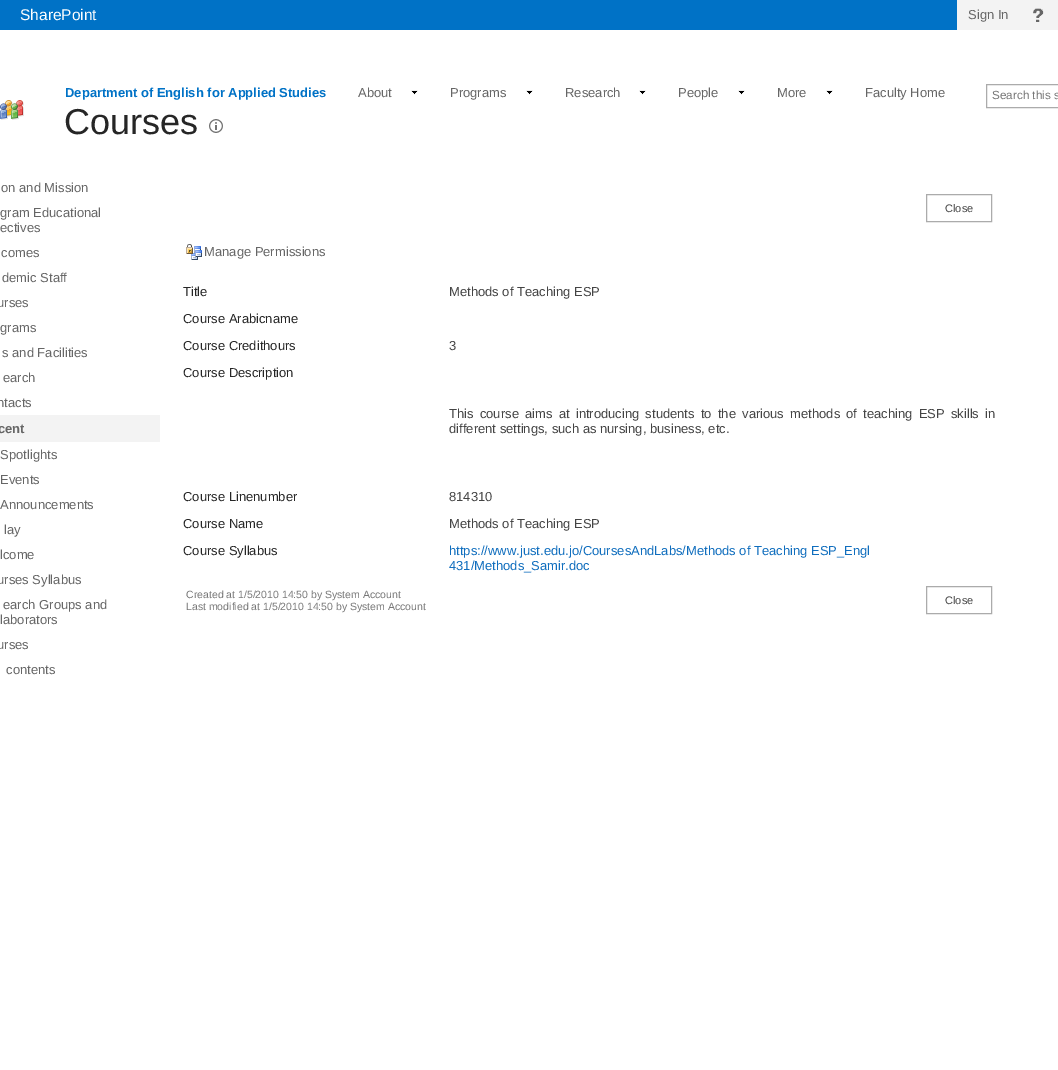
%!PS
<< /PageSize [1058 1070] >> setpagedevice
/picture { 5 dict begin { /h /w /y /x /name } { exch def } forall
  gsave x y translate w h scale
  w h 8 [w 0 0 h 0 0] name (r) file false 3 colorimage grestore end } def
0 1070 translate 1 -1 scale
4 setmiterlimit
1 setgray
0 0 1058 1070 rectfill
0 0.447 0.776 setrgbcolor
0 0 957 30 rectfill
/LiberationSans-Regular [15.5 0 0 -15.5 0 0] selectfont
1 setgray
20 20 moveto (SharePoint) show
0.953 setgray
957 0 101 30 rectfill
/LiberationSans-Regular [13 0 0 -13 0 0] selectfont
0.4 setgray
968 19 moveto (Sign In) show
(img1.rgb) 1033 8 11 14 picture
/LiberationSans-Bold [13 0 0 -13 0 0] selectfont
0 0.447 0.776 setrgbcolor
65 97 moveto (Department of English for Applied Studies) show
/LiberationSans-Regular [13 0 0 -13 0 0] selectfont
0.4 setgray
358 97 moveto (About) show
(img2.rgb) 411 90 7 5 picture
450 97 moveto (Programs) show
(img2.rgb) 526 90 7 5 picture
565 97 moveto (Research) show
(img2.rgb) 639 90 7 5 picture
678 97 moveto (People) show
(img2.rgb) 738 90 7 5 picture
777 97 moveto (More) show
(img2.rgb) 826 90 7 5 picture
865 97 moveto (Faculty Home) show
/LiberationSans-Regular [36 0 0 -36 0 0] selectfont
0.149 setgray
64 134 moveto (Courses) show
(img3.rgb) 209 119 14 14 picture
0.671 setgray
986.5 84.5 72 23 rectstroke
/LiberationSans-Regular [11.75 0 0 -11.75 0 0] selectfont
0.467 setgray
992 99 moveto (Search this s) show
(img4.rgb) 0 100 24 20 picture
/LiberationSans-Regular [13 0 0 -13 0 0] selectfont
0.4 setgray
1 192 moveto (on and Mission) show
0 217 moveto (gram Educational) show
0 232 moveto (ectives) show
1 257 moveto (comes) show
2 282 moveto (demic Staff) show
-3 307 moveto (urses) show
0 332 moveto (grams) show
2 357 moveto (s and Facilities) show
3 382 moveto (earch) show
-3 407 moveto (ntacts) show
0.953 setgray
0 415 160 27 rectfill
/LiberationSans-Bold [13 0 0 -13 0 0] selectfont
0.4 setgray
-2 433 moveto (cent) show
/LiberationSans-Regular [13 0 0 -13 0 0] selectfont
0 459 moveto (Spotlights) show
0 484 moveto (Events) show
0 509 moveto (Announcements) show
4 534 moveto (lay) show
0 559 moveto (lcome) show
-3 584 moveto (urses Syllabus) show
3 609 moveto (earch Groups and) show
0 624 moveto (laborators) show
-3 649 moveto (urses) show
6 674 moveto (contents) show
0.671 setgray
926.5 194.5 65 27 rectstroke
/LiberationSans-Regular [11 0 0 -11 0 0] selectfont
0.267 setgray
945 212 moveto (Close) show
(img5.rgb) 186 244 16 16 picture
/LiberationSans-Regular [13 0 0 -13 0 0] selectfont
0.4 setgray
204 256 moveto (Manage Permissions) show
0.149 setgray
183 296 moveto (Title) show
0.267 setgray
449 296 moveto (Methods of Teaching ESP) show
0.149 setgray
183 323 moveto (Course Arabicname) show
183 350 moveto (Course Credithours) show
0.267 setgray
449 350 moveto (3) show
0.149 setgray
183 377 moveto (Course Description) show
0.267 setgray
449 418 moveto 2.6 0 32 (This course aims at introducing students to the various methods of teaching ESP skills in) widthshow
449 433 moveto (different settings, such as nursing, business, etc.) show
0.149 setgray
183 501 moveto (Course Linenumber) show
0.267 setgray
449 501 moveto (814310) show
0.149 setgray
183 528 moveto (Course Name) show
0.267 setgray
449 528 moveto (Methods of Teaching ESP) show
0.149 setgray
183 555 moveto (Course Syllabus) show
0.063 0.431 0.745 setrgbcolor
449 555 moveto (https://www.just.edu.jo/CoursesAndLabs/Methods of Teaching ESP_Engl) show
449 570 moveto (431/Methods_Samir.doc) show
/LiberationSans-Regular [10.5 0 0 -10.5 0 0] selectfont
0.467 setgray
186 598 moveto (Created at 1/5/2010 14:50 by System Account) show
186 610 moveto (Last modified at 1/5/2010 14:50 by System Account) show
0.671 setgray
926.5 586.5 65 27 rectstroke
/LiberationSans-Regular [11 0 0 -11 0 0] selectfont
0.267 setgray
945 604 moveto (Close) show
showpage
